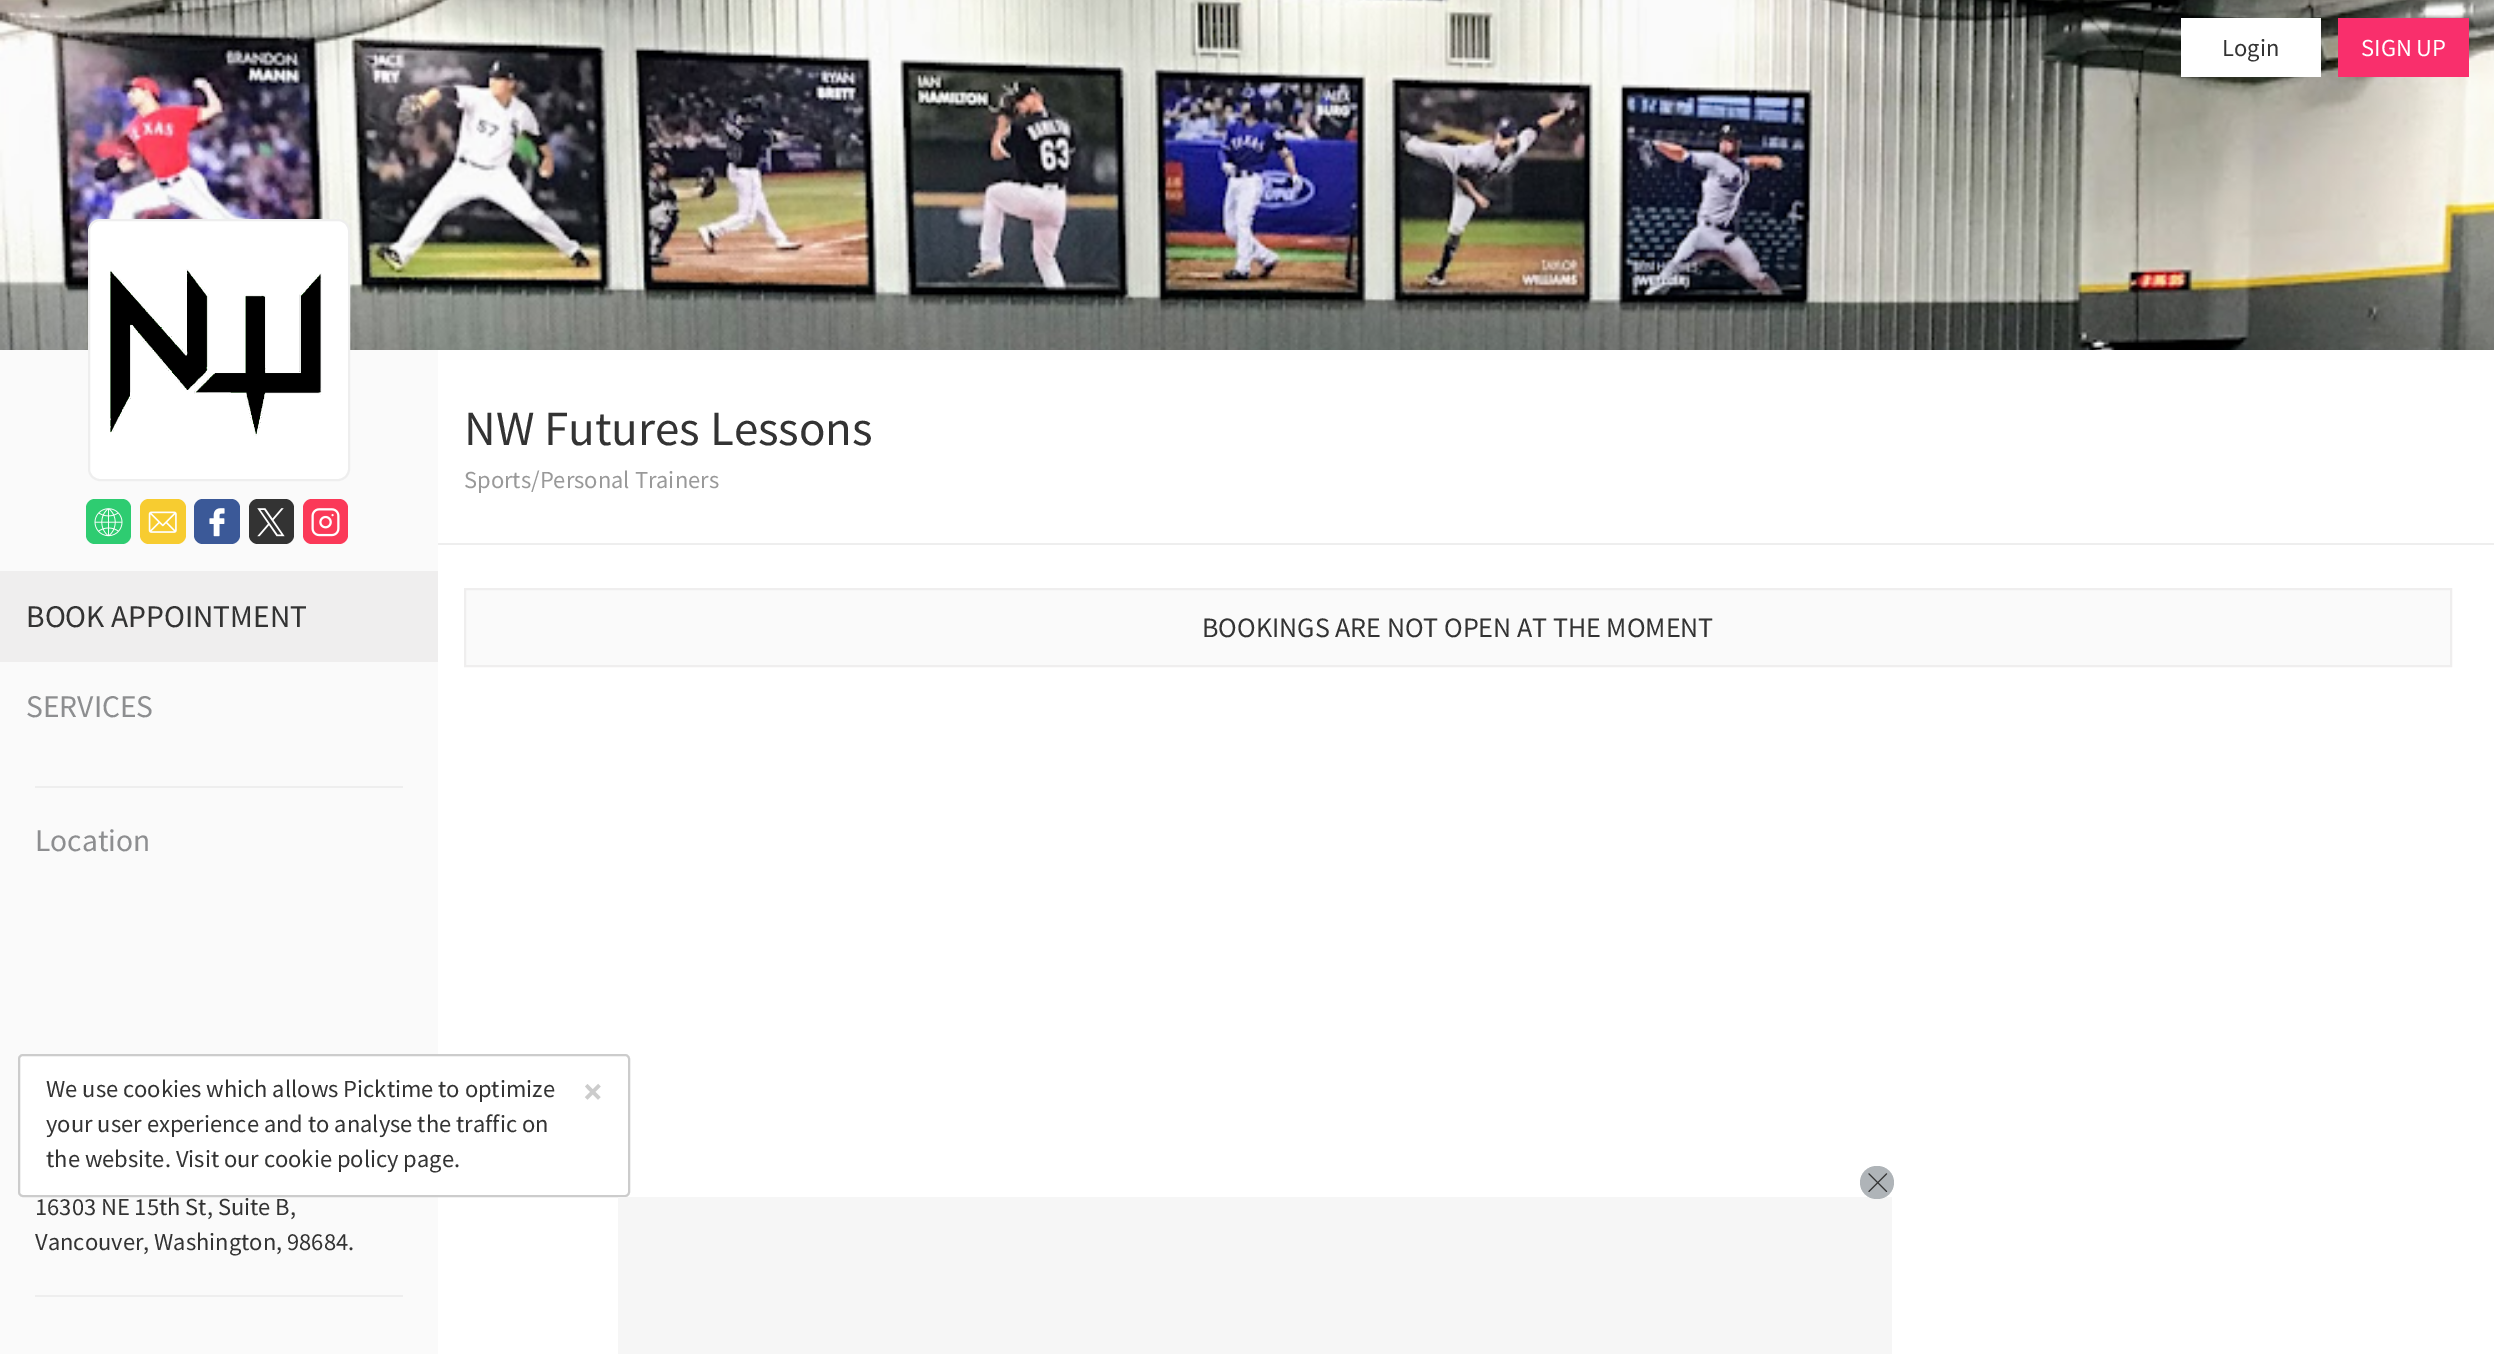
%!PS
<< /PageSize [2494 1354] /PageUsesTransparency true >> setpagedevice
/alpha { dup .setfillconstantalpha .setstrokeconstantalpha } def
/roundrect { 5 dict begin { /r /h /w /y /x } { exch def } forall
  x r add y moveto x w add y 2 copy h add r arct x w add y h add x 1 index r arct
  x y h add x y r arct x y 2 copy exch w add exch r arct closepath end } def
/picture { 5 dict begin { /h /w /y /x /name } { exch def } forall
  gsave x y translate w h scale
  w h 8 [w 0 0 h 0 0] name (r) file false 3 colorimage grestore end } def
0 .pushpdf14devicefilter
0 1354 translate 1 -1 scale
4 setmiterlimit
0.98 setgray
0 0 2494 1354 rectfill
(img1.rgb) 0 0 2494 350 picture
1 setgray
2181 18 140 59 rectfill
/SourceSansPro-Regular [24.5 0 0 -24.5 0 0] selectfont
0.2 setgray
2222 56 moveto (Login) show
0.976 0.184 0.424 setrgbcolor
2338 18 131 59 rectfill
1 setgray
2361 56 moveto (SIGN UP) show
89 220 260 260 11 roundrect gsave fill grestore
0.933 setgray
2 setlinewidth
stroke
(img2.rgb) 110 269 212 167 picture
1 setgray
438 350 2056 1004 rectfill
0.933 setgray
438 543 2056 2 rectfill
/SourceSansPro-Regular [49 0 0 -49 0 0] selectfont
0.2 setgray
464 445 moveto (NW Futures Lessons) show
/SourceSansPro-Regular [24.5 0 0 -24.5 0 0] selectfont
0.6 setgray
464 488 moveto (Sports/Personal Trainers) show
0.98 setgray
newpath 465 589 moveto 2451 589 lineto 2451 666 lineto 465 666 lineto closepath gsave fill grestore
0.937 0.933 0.933 setrgbcolor
stroke
/SourceSansPro-Regular [28 0 0 -28 0 0] selectfont
0.2 setgray
1202 637 moveto (BOOKINGS ARE NOT OPEN AT THE MOMENT) show
0.18 0.8 0.443 setrgbcolor
86 499 45 45 9 roundrect fill
(img3.rgb) 94 508 29 29 picture
0.969 0.8 0.188 setrgbcolor
140 499 46 45 9 roundrect fill
(img4.rgb) 148 511 29 22 picture
0.231 0.349 0.596 setrgbcolor
194 499 46 45 9 roundrect fill
(img5.rgb) 209 508 16 29 picture
0.2 setgray
249 499 45 45 9 roundrect fill
(img6.rgb) 257 508 28 29 picture
0.984 0.224 0.345 setrgbcolor
303 499 45 45 9 roundrect fill
(img7.rgb) 311 508 29 29 picture
0.937 0.933 0.933 setrgbcolor
0 571 438 91 rectfill
/SourceSansPro-Regular [31.5 0 0 -31.5 0 0] selectfont
0.2 setgray
26 627 moveto (BOOK APPOINTMENT) show
0.553 0.557 0.565 setrgbcolor
26 717 moveto (SERVICES) show
0.933 setgray
35 786 368 2 rectfill
35 1295 368 2 rectfill
0.553 0.557 0.565 setrgbcolor
35 851 moveto (Location) show
/SourceSansPro-Regular [24.5 0 0 -24.5 0 0] selectfont
0.2 setgray
35 1215 moveto (16303 NE 15th St, Suite B,) show
35 1250 moveto (Vancouver, Washington, 98684.) show
0.9 alpha
1 setgray
19 1055 610 141 4 roundrect fill
1 alpha
0.8 setgray
19 1055 610 141 4 roundrect stroke
0.2 setgray
46 1097 moveto (We use cookies which allows Picktime to optimize) show
/SourceSansPro-Bold [37 0 0 -37 0 0] selectfont
0.8 setgray
583 1104 moveto (×) show
/SourceSansPro-Regular [24.5 0 0 -24.5 0 0] selectfont
0.2 setgray
46 1132 moveto (your user experience and to analyse the traffic on) show
46 1167 moveto (the website. Visit our cookie policy page.) show
0.965 setgray
618 1197 1274 157 rectfill
0.686 0.706 0.722 setrgbcolor
1860 1166 34 33 16.5 roundrect fill
(img8.rgb) 1868 1173 20 19 picture
.poppdf14devicefilter showpage
